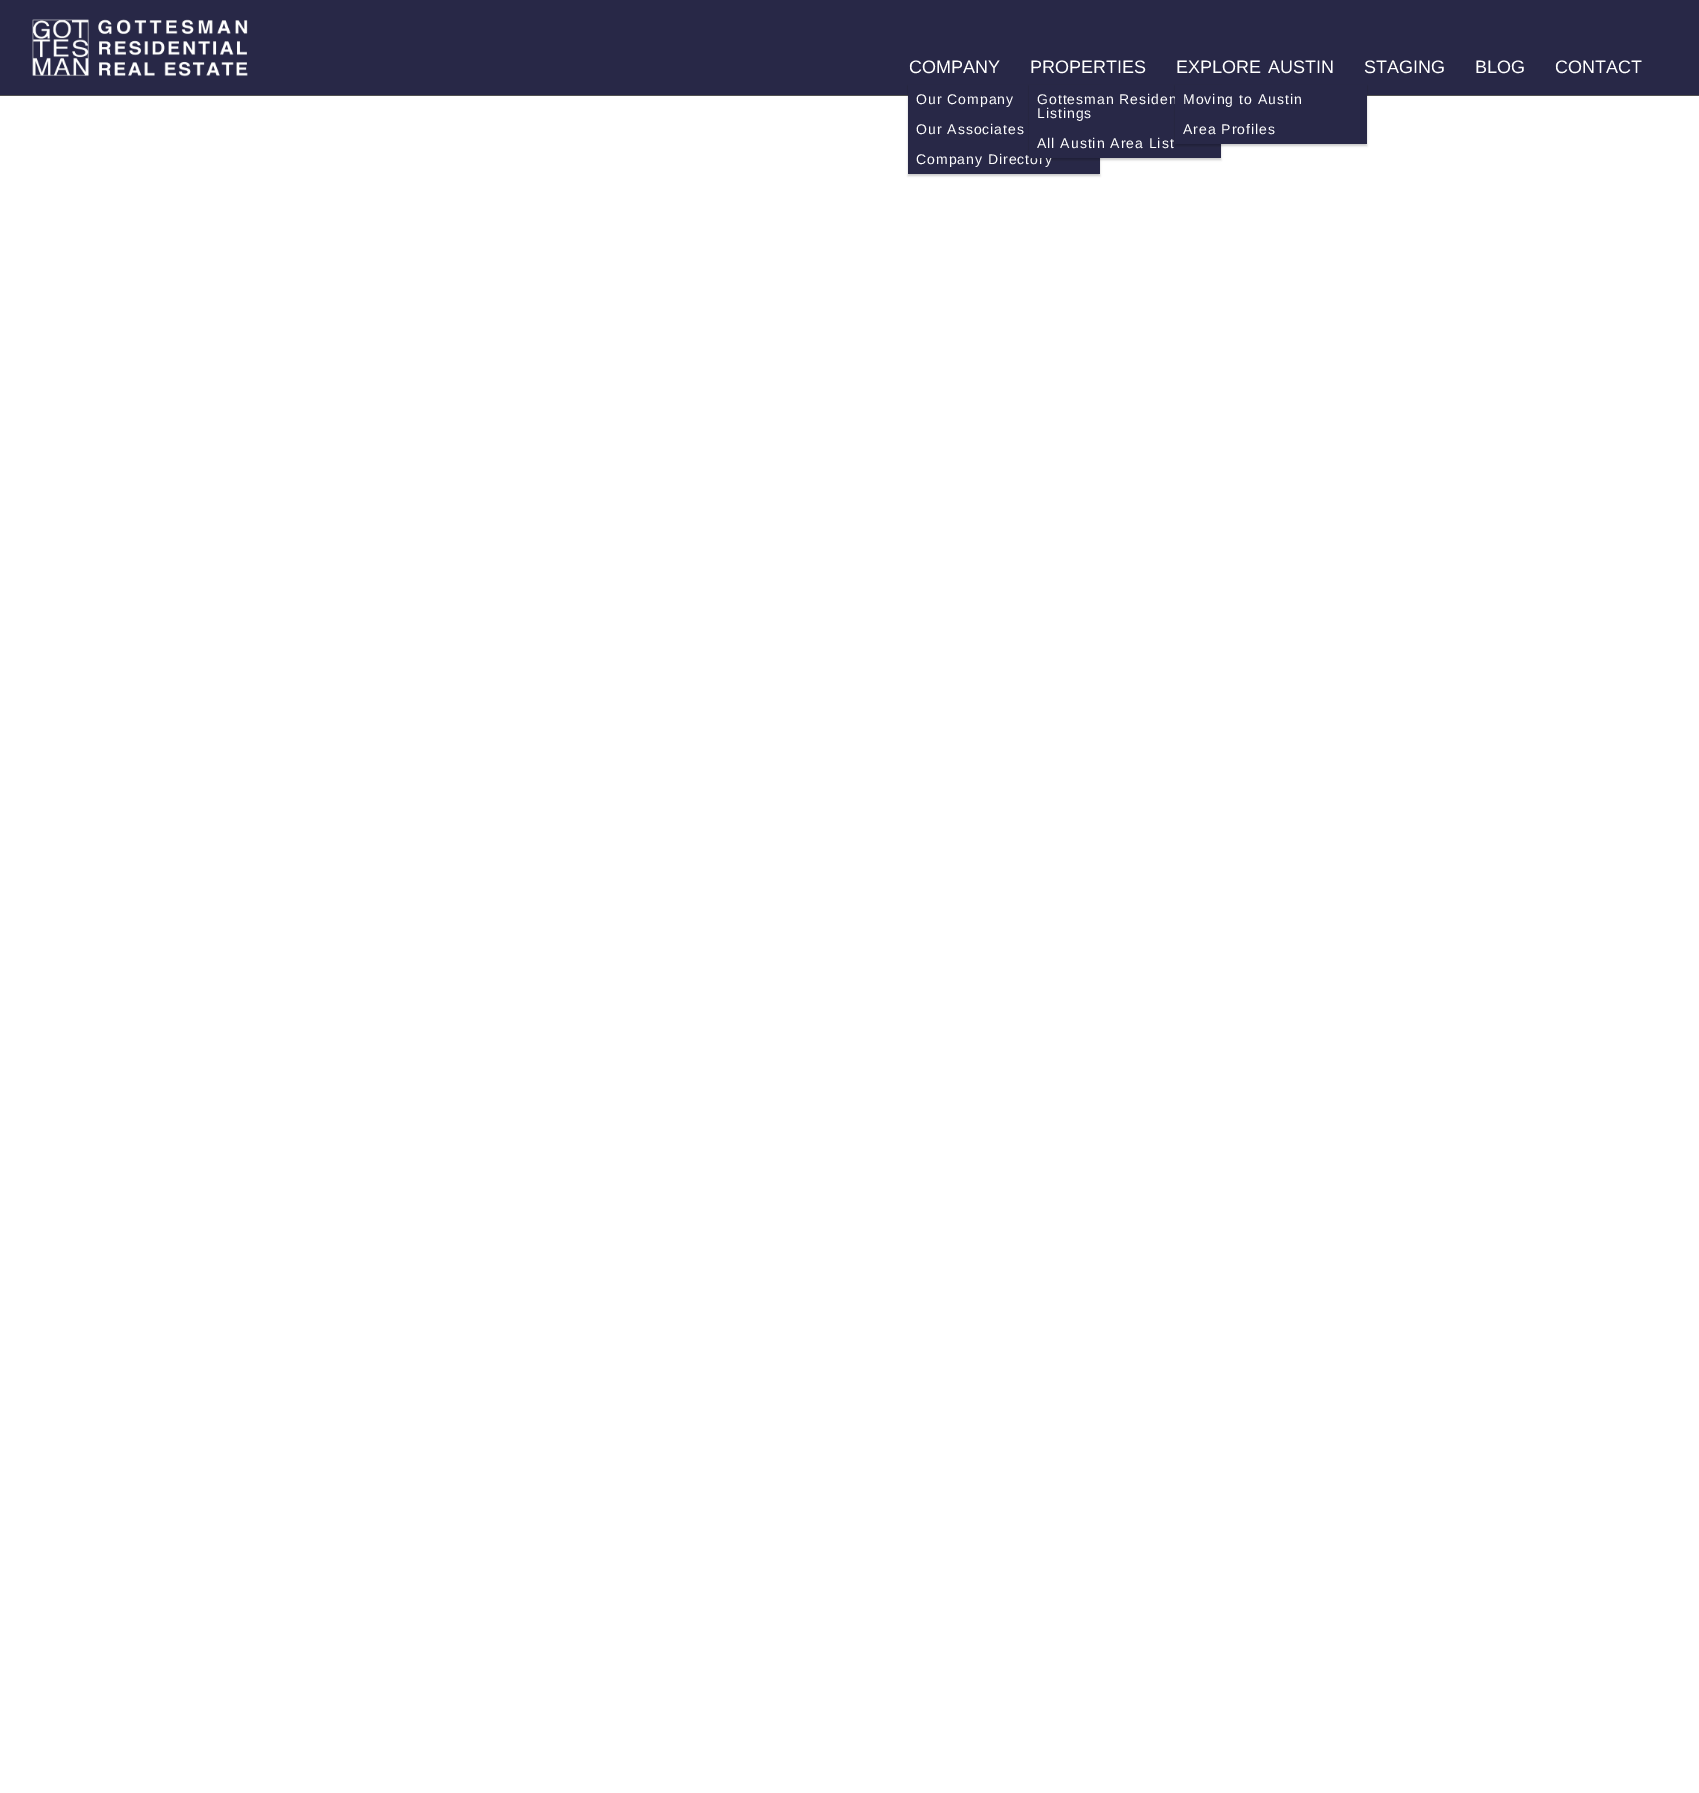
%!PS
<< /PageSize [1699 1793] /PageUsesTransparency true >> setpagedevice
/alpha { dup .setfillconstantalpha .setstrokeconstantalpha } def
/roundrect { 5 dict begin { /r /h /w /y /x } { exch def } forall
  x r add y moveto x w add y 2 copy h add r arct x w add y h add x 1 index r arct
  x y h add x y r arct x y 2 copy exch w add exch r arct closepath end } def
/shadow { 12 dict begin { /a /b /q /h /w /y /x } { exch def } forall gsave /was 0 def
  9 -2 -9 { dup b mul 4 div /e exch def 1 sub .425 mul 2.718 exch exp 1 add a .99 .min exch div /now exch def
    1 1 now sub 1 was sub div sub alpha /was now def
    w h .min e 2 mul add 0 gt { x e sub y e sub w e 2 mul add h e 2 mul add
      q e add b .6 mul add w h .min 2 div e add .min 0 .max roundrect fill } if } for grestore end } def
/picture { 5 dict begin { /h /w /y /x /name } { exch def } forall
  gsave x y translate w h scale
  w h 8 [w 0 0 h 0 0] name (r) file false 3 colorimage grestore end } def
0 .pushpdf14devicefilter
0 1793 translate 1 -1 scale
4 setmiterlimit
1 setgray
0 0 1699 1793 rectfill
0.157 0.157 0.278 setrgbcolor
0 0 1699 95 rectfill
0.318 setgray
0 95 1699 1 rectfill
(img1.rgb) 32 19 216 58 picture
/LiberationSans-Regular [18 0 0 -18 0 0] selectfont
1 setgray
909 73 moveto (COMPANY) show
0 setgray
908 86 192 90 0 1 0.2 shadow
0.157 0.157 0.278 setrgbcolor
908 85 121 59 rectfill
/LiberationSans-Regular [14 0 0 -14 0 0] selectfont
1 setgray
916 104 moveto 1 0 (Our Company) ashow
916 134 moveto 1 0 (Our Associates) ashow
0.157 0.157 0.278 setrgbcolor
908 144 192 30 rectfill
1 setgray
916 164 moveto 1 0 (Company Directory) ashow
/LiberationSans-Regular [18 0 0 -18 0 0] selectfont
1030 73 moveto (PROPERTIES) show
0 setgray
1029 86 192 74 0 1 0.2 shadow
0.157 0.157 0.278 setrgbcolor
1029 85 146 43 rectfill
/LiberationSans-Regular [14 0 0 -14 0 0] selectfont
1 setgray
1037 104 moveto 1 0 (Gottesman Residen) ashow
1037 118 moveto 1 0 (Listings) ashow
0.157 0.157 0.278 setrgbcolor
1029 128 192 30 rectfill
1 setgray
1037 148 moveto 1 0 (All Austin Area List) ashow
/LiberationSans-Regular [18 0 0 -18 0 0] selectfont
1176 73 moveto 2 0 32 (EXPLORE AUSTIN) widthshow
0 setgray
1175 86 192 60 0 1 0.2 shadow
0.157 0.157 0.278 setrgbcolor
1175 85 192 59 rectfill
/LiberationSans-Regular [14 0 0 -14 0 0] selectfont
1 setgray
1183 104 moveto 1 0 (Moving to Austin) ashow
1183 134 moveto 1 0 (Area Profiles) ashow
/LiberationSans-Regular [18 0 0 -18 0 0] selectfont
1364 73 moveto (STAGING) show
1475 73 moveto (BLOG) show
1555 73 moveto (CONTACT) show
.poppdf14devicefilter showpage
